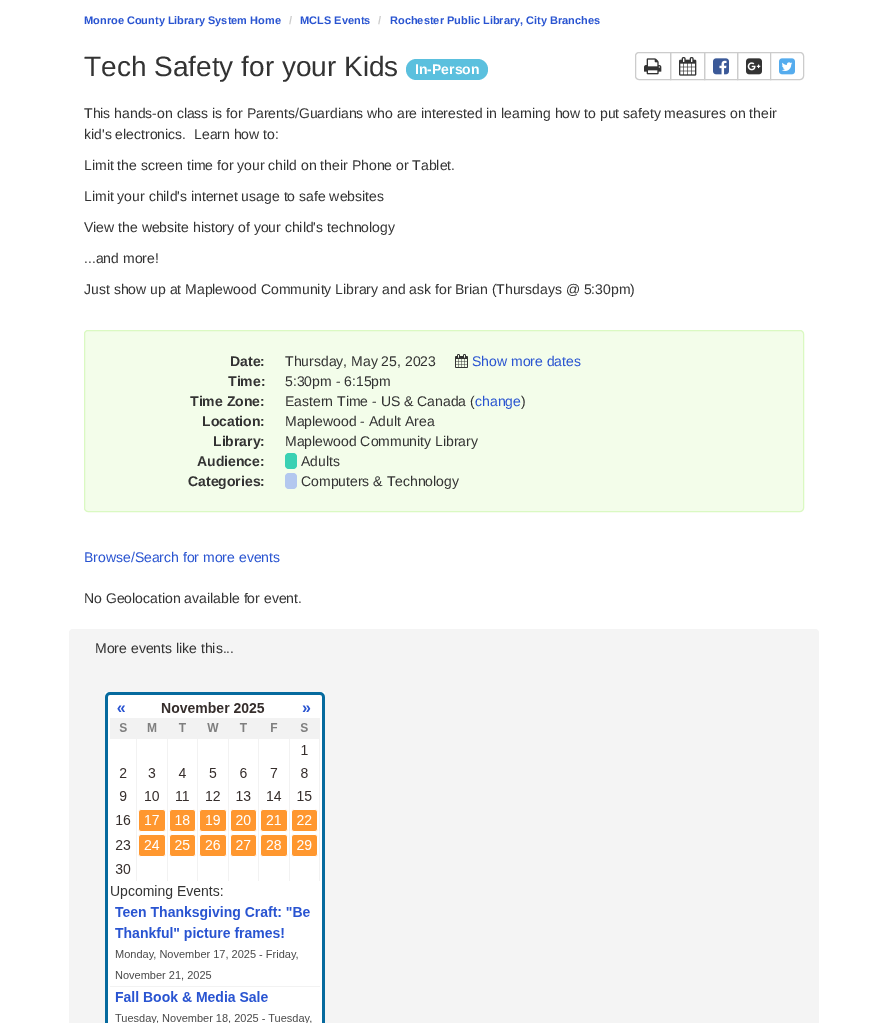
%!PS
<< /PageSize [888 1023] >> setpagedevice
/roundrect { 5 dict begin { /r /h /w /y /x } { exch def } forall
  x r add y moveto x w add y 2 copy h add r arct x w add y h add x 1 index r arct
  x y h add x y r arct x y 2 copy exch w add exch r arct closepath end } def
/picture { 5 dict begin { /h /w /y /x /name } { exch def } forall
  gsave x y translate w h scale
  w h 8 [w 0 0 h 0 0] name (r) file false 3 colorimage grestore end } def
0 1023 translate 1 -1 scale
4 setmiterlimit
1 setgray
0 0 888 1023 rectfill
/LiberationSans-Bold [11 0 0 -11 0 0] selectfont
0.161 0.329 0.82 setrgbcolor
84 24 moveto (Monroe County Library System Home) show
0.8 setgray
289 24 moveto (/) show
0.161 0.329 0.82 setrgbcolor
300 24 moveto (MCLS Events) show
0.8 setgray
378 24 moveto (/) show
0.161 0.329 0.82 setrgbcolor
390 24 moveto (Rochester Public Library, City Branches) show
/LiberationSans-Regular [28 0 0 -28 0 0] selectfont
0.2 setgray
84 76 moveto (Tech Safety for your Kids) show
0.357 0.753 0.871 setrgbcolor
406 59 82 21 10.5 roundrect fill
/LiberationSans-Bold [14 0 0 -14 0 0] selectfont
1 setgray
415 74 moveto (In-Person) show
0.8 setgray
newpath 639 52.5 moveto 670.5 52.5 lineto 670.5 79.5 lineto 639 79.5 lineto 637 79.5 635.5 78 635.5 76 curveto 635.5 56 lineto 635.5 54 637 52.5 639 52.5 curveto closepath stroke
(img1.rgb) 644 58 18 17 picture
670.5 52.5 34 27 rectstroke
(img2.rgb) 679 57 18 19 picture
704.5 52.5 33 27 rectstroke
(img3.rgb) 713 58 16 17 picture
737.5 52.5 33 27 rectstroke
(img4.rgb) 746 58 16 17 picture
1 setgray
newpath 770.5 52.5 moveto 800 52.5 lineto 802 52.5 803.5 54 803.5 56 curveto 803.5 76 lineto 803.5 78 802 79.5 800 79.5 curveto 770.5 79.5 lineto closepath gsave fill grestore
0.8 setgray
stroke
(img5.rgb) 779 58 16 17 picture
/LiberationSans-Regular [14 0 0 -14 0 0] selectfont
0.2 setgray
84 118 moveto (This hands-on class is for Parents/Guardians who are interested in learning how to put safety measures on their) show
84 139 moveto (kid's electronics.  Learn how to:) show
84 170 moveto (Limit the screen time for your child on their Phone or Tablet.) show
84 201 moveto (Limit your child's internet usage to safe websites) show
84 232 moveto (View the website history of your child's technology) show
84 263 moveto (...and more!) show
84 294 moveto (Just show up at Maplewood Community Library and ask for Brian \(Thursdays @ 5:30pm\)) show
0.953 0.992 0.918 setrgbcolor
84.5 330.5 719 181 3.5 roundrect gsave fill grestore
0.855 0.976 0.761 setrgbcolor
stroke
/LiberationSans-Bold [14 0 0 -14 0 0] selectfont
0.2 setgray
230 366 moveto (Date:) show
/LiberationSans-Regular [14 0 0 -14 0 0] selectfont
285 366 moveto (Thursday, May 25, 2023) show
(img6.rgb) 455 354 13 14 picture
0.161 0.329 0.82 setrgbcolor
472 366 moveto (Show more dates) show
/LiberationSans-Bold [14 0 0 -14 0 0] selectfont
0.2 setgray
228 386 moveto (Time:) show
/LiberationSans-Regular [14 0 0 -14 0 0] selectfont
285 386 moveto (5:30pm - 6:15pm) show
/LiberationSans-Bold [14 0 0 -14 0 0] selectfont
190 406 moveto (Time Zone:) show
/LiberationSans-Regular [14 0 0 -14 0 0] selectfont
285 406 moveto (Eastern Time - US & Canada \() show
0.161 0.329 0.82 setrgbcolor
475 406 moveto (change) show
0.2 setgray
521 406 moveto (\)) show
/LiberationSans-Bold [14 0 0 -14 0 0] selectfont
202 426 moveto (Location:) show
/LiberationSans-Regular [14 0 0 -14 0 0] selectfont
285 426 moveto (Maplewood - Adult Area) show
/LiberationSans-Bold [14 0 0 -14 0 0] selectfont
213 446 moveto (Library:) show
/LiberationSans-Regular [14 0 0 -14 0 0] selectfont
285 446 moveto (Maplewood Community Library) show
/LiberationSans-Bold [14 0 0 -14 0 0] selectfont
197 466 moveto (Audience:) show
0.227 0.82 0.702 setrgbcolor
285 453 12 16 4 roundrect fill
/LiberationSans-Regular [14 0 0 -14 0 0] selectfont
0.2 setgray
301 466 moveto (Adults) show
/LiberationSans-Bold [14 0 0 -14 0 0] selectfont
188 486 moveto (Categories:) show
0.702 0.784 0.937 setrgbcolor
285 473 12 16 4 roundrect fill
/LiberationSans-Regular [14 0 0 -14 0 0] selectfont
0.2 setgray
301 486 moveto (Computers & Technology) show
0.161 0.329 0.82 setrgbcolor
84 562 moveto (Browse/Search for more events) show
0.2 setgray
84 603 moveto (No Geolocation available for event.) show
0.957 setgray
69 629 750 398 4 roundrect fill
0.2 setgray
95 653 moveto (More events like this...) show
(img7.rgb) 105 692 220 331 picture
showpage
